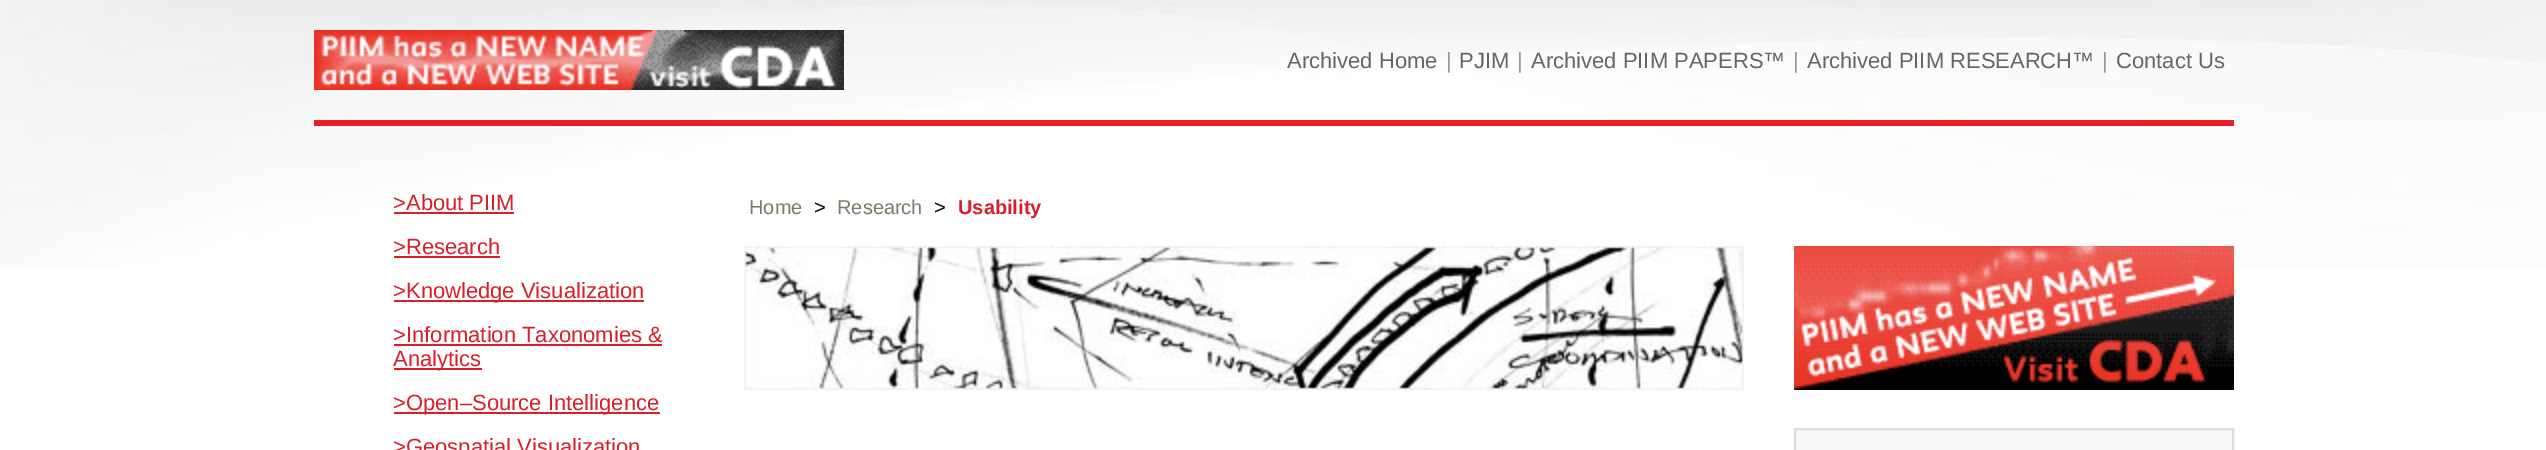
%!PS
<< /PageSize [2546 450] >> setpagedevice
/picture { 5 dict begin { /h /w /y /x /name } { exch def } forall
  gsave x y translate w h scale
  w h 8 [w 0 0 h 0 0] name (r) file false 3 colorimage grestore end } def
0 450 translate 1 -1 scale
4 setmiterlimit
1 setgray
0 0 2546 450 rectfill
(img1.rgb) 0 0 2546 267 picture
0.925 0.11 0.141 setrgbcolor
314 120 1920 6 rectfill
(img2.rgb) 314 30 530 60 picture
/LiberationSans-Regular [22 0 0 -22 0 0] selectfont
0.4 setgray
1287 68 moveto (Archived Home) show
0.6 setgray
1446 68 moveto (|) show
0.4 setgray
1459 68 moveto (PJIM) show
0.6 setgray
1517 68 moveto (|) show
0.4 setgray
1531 68 moveto (Archived PIIM PAPERS™) show
0.6 setgray
1793 68 moveto (|) show
0.4 setgray
1807 68 moveto (Archived PIIM RESEARCH™) show
0.6 setgray
2102 68 moveto (|) show
0.4 setgray
2116 68 moveto (Contact Us) show
0.851 0.122 0.161 setrgbcolor
393 210 moveto (>About PIIM) show
394 212 120 2 rectfill
393 254 moveto (>Research) show
394 256 106 2 rectfill
394 300 250 2 rectfill
393 298 moveto (>Knowledge Visualization) show
393 342 moveto (>Information Taxonomies &) show
394 344 268 2 rectfill
394 368 88 2 rectfill
393 366 moveto (Analytics) show
394 412 266 2 rectfill
393 410 moveto (>Open–Source Intelligence) show
393 454 moveto (>Geospatial Visualization) show
/LiberationSans-Regular [20 0 0 -20 0 0] selectfont
0.502 0.467 0.412 setrgbcolor
749 214 moveto (Home) show
0 setgray
814 214 moveto (>) show
0.502 0.467 0.412 setrgbcolor
837 214 moveto (Research) show
0 setgray
934 214 moveto (>) show
/LiberationSans-Bold [20 0 0 -20 0 0] selectfont
0.851 0.122 0.161 setrgbcolor
958 214 moveto (Usability) show
(img3.rgb) 744 246 1000 144 picture
(img4.rgb) 1794 246 440 144 picture
0.976 setgray
newpath 1795 429 moveto 2233 429 lineto 2233 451 lineto 1795 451 lineto closepath gsave fill grestore
0.867 setgray
2 setlinewidth
stroke
showpage
